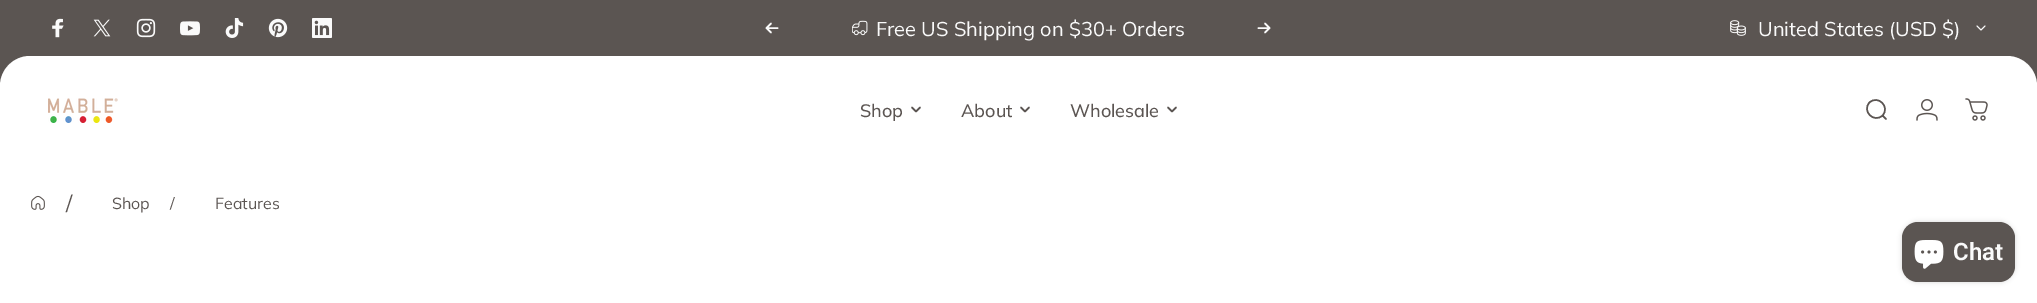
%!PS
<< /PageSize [2037 303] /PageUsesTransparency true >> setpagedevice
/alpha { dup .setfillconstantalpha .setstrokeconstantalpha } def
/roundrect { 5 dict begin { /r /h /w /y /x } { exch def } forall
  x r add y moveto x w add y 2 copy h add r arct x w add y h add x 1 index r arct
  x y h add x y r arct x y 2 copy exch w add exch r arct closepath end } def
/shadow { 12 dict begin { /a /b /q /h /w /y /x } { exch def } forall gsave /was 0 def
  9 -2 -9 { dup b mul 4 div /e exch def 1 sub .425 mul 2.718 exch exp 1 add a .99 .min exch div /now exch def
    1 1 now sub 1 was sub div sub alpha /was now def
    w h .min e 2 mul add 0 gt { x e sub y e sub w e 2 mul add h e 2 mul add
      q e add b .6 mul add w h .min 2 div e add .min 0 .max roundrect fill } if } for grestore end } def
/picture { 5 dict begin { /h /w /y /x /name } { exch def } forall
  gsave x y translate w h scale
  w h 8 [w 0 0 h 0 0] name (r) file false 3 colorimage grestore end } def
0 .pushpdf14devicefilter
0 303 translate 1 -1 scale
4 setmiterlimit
1 setgray
0 0 2037 303 rectfill
0.357 0.333 0.322 setrgbcolor
0 0 2037 30 rectfill
newpath 30 0 moveto 2007 0 lineto 2023.5 0 2037 13.5 2037 30 curveto 2037 86 lineto 0 86 lineto 0 30 lineto 0 13.5 13.5 0 30 0 curveto closepath fill
(img1.rgb) 52 18 12 20 picture
(img2.rgb) 93 19 18 18 picture
(img3.rgb) 136 18 20 20 picture
(img4.rgb) 180 21 20 15 picture
(img5.rgb) 225 18 19 20 picture
(img6.rgb) 268 18 20 20 picture
(img7.rgb) 312 18 20 20 picture
0.98 setgray
1.6 setlinewidth
1 setlinecap
1 setlinejoin
newpath 771 23.5 moveto 766.5 28 lineto 766.5 28 moveto 771 32.5 lineto 766.5 28 moveto 777.5 28 lineto stroke
(img8.rgb) 852 20 16 16 picture
/Muli-Regular [20 0 0 -20 0 0] selectfont
876 36 moveto (Free US Shipping on $30+ Orders) show
newpath 1258.5 28 moveto 1269.5 28 lineto 1269.5 28 moveto 1265 23.5 lineto 1269.5 28 moveto 1265 32.5 lineto stroke
(img9.rgb) 1730 20 16 16 picture
1758 36 moveto (United States \(USD $\)) show
1 setlinewidth
newpath 1977 26 moveto 1981 30 lineto 1985 26 lineto stroke
1 setgray
newpath 30 56 moveto 2007 56 lineto 2023.5 56 2037 69.5 2037 86 curveto 2037 164 lineto 0 164 lineto 0 86 lineto 0 69.5 13.5 56 30 56 curveto closepath fill
(img10.rgb) 48 98 70 25 picture
/Muli-Medium [18 0 0 -18 0 0] selectfont
0.357 0.333 0.322 setrgbcolor
860 117 moveto (Shop) show
1.5 setlinewidth
newpath 912 107.5 moveto 916 111.5 lineto 920 107.5 lineto stroke
961 117 moveto (About) show
newpath 1021 107.5 moveto 1025 111.5 lineto 1029 107.5 lineto stroke
1070 117 moveto (Wholesale) show
newpath 1168 107.5 moveto 1172 111.5 lineto 1176 107.5 lineto stroke
0 setlinejoin
newpath 1886 119 moveto 1882.5 115.5 lineto 1882.5 115.5 moveto 1890.5 107 1878 94.5 1869.5 102.5 curveto 1861.5 111 1874 123.5 1882.5 115.5 curveto closepath stroke
(img11.rgb) 1916 99 22 22 picture
(img12.rgb) 1965 98 23 23 picture
(img13.rgb) 31 195 14 15 picture
/Muli-Regular [22 0 0 -22 0 0] selectfont
66 211 moveto (/) show
/Muli-Regular [16 0 0 -16 0 0] selectfont
112 209 moveto (Shop) show
170 209 moveto (/) show
215 209 moveto (Features) show
0 setgray
1902 222 113 60 16 2.5 0.15 shadow
0.357 0.333 0.322 setrgbcolor
1902 222 113 60 16 roundrect fill
(img14.rgb) 1914 240 30 29 picture
/Roboto-SemiBold [24 0 0 -24 0 0] selectfont
0.98 setgray
1953 260 moveto (Chat) show
.poppdf14devicefilter showpage
